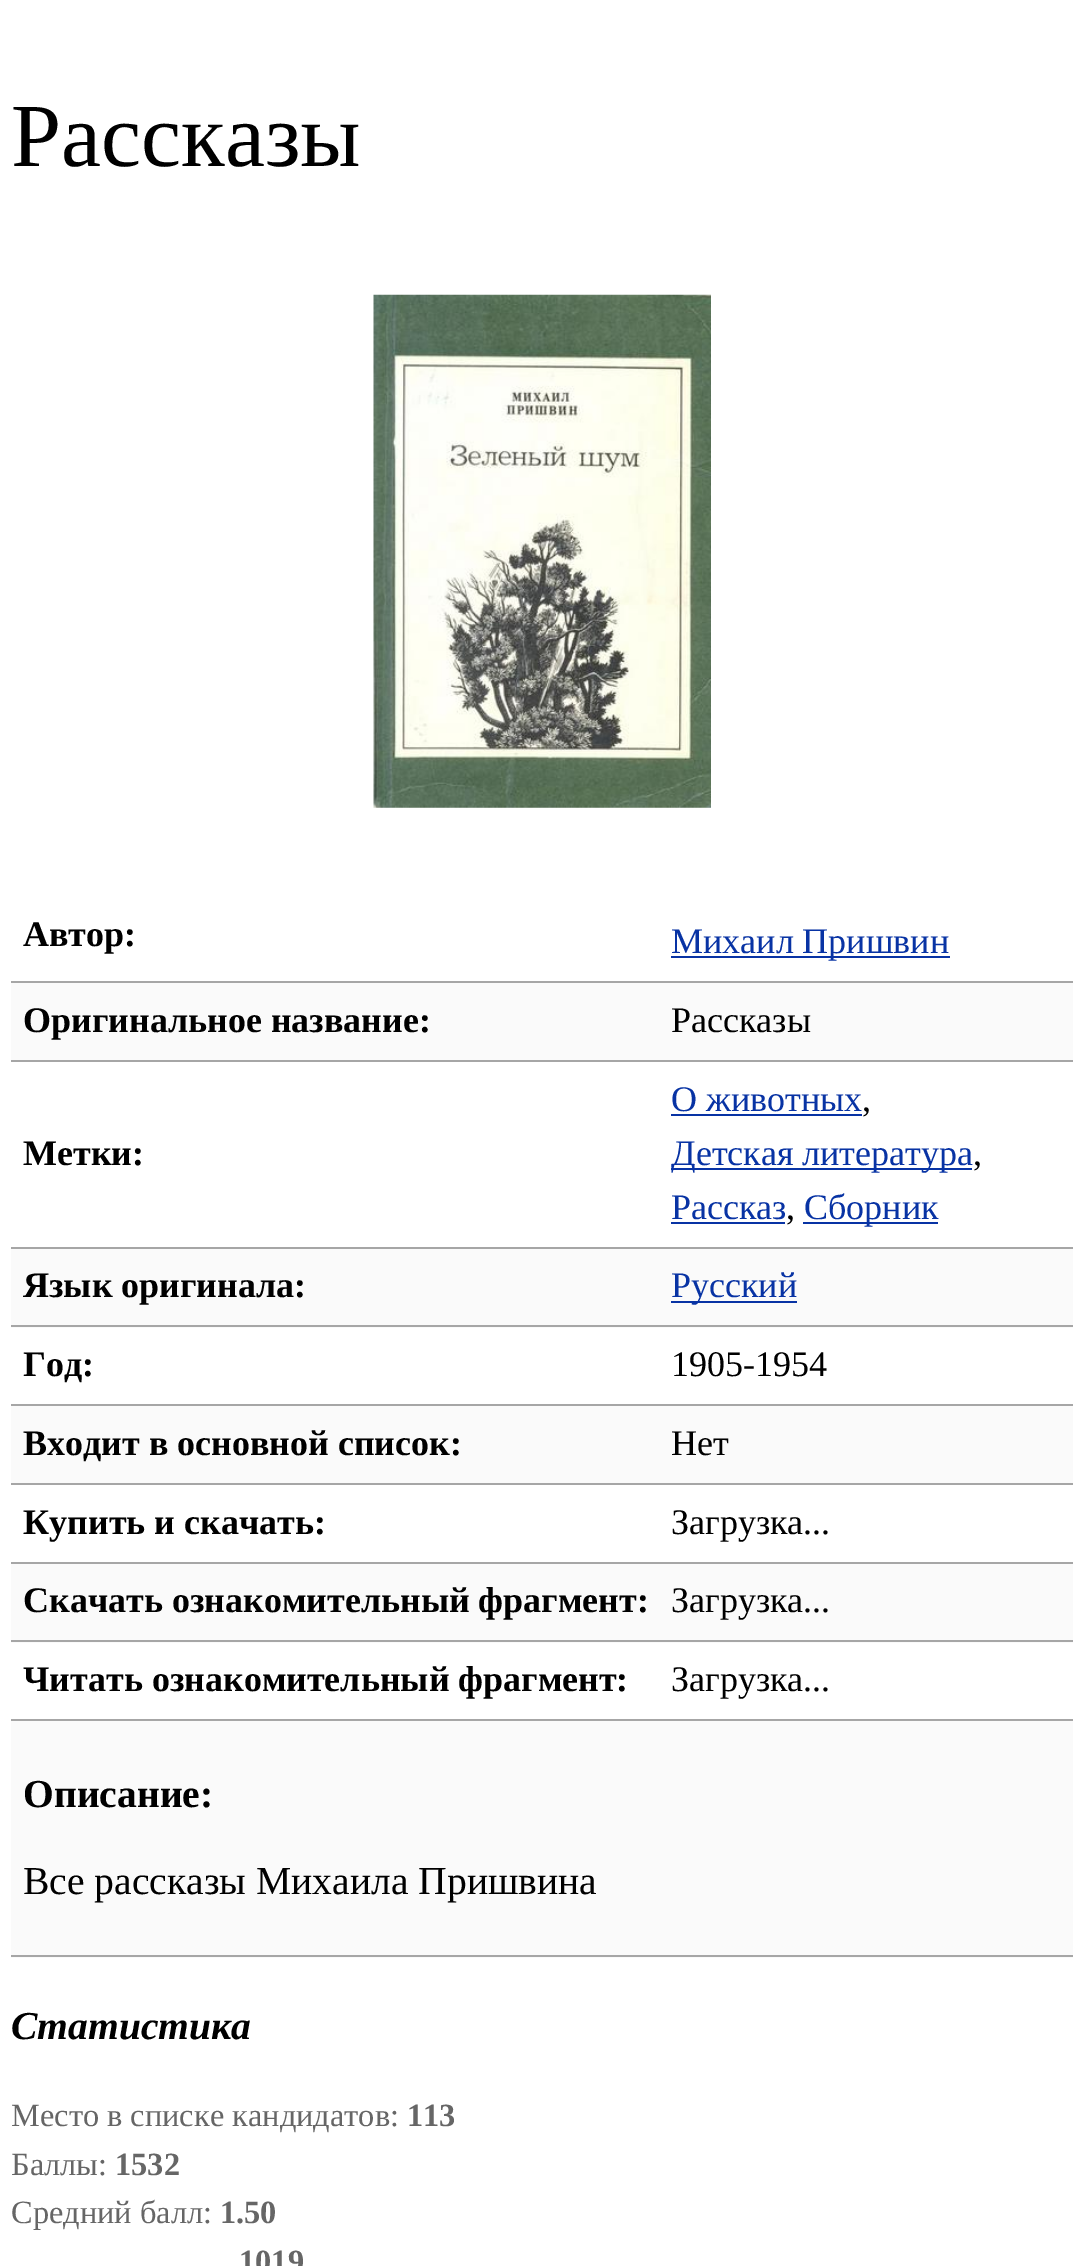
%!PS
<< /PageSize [1083 2266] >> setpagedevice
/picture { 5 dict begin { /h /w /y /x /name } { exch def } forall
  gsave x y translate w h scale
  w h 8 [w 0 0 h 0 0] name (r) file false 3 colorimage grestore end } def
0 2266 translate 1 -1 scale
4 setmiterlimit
1 setgray
0 0 1083 2266 rectfill
/LiberationSerif-Regular [90 0 0 -90 0 0] selectfont
0 setgray
11 166 moveto (Рассказы) show
(img1.rgb) 373 294 338 514 picture
0.651 setgray
11 981 1062 2 rectfill
/LiberationSerif-Bold [36 0 0 -36 0 0] selectfont
0 setgray
23 946 moveto (Автор:) show
0.031 0.2 0.643 setrgbcolor
671 956 279 2 rectfill
/LiberationSerif-Regular [36 0 0 -36 0 0] selectfont
671 953 moveto (Михаил Пришвин) show
0.98 setgray
11 983 1062 77 rectfill
0.651 setgray
11 1060 1062 2 rectfill
/LiberationSerif-Bold [36 0 0 -36 0 0] selectfont
0 setgray
23 1032 moveto (Оригинальное название:) show
/LiberationSerif-Regular [36 0 0 -36 0 0] selectfont
671 1032 moveto (Рассказы) show
0.651 setgray
11 1247 1062 2 rectfill
/LiberationSerif-Bold [36 0 0 -36 0 0] selectfont
0 setgray
23 1165 moveto (Метки:) show
/LiberationSerif-Regular [36 0 0 -36 0 0] selectfont
0.031 0.2 0.643 setrgbcolor
671 1111 moveto (О животных) show
671 1114 191 2 rectfill
0 setgray
862 1111 moveto (,) show
0.031 0.2 0.643 setrgbcolor
671 1168 301 2 rectfill
671 1165 moveto (Детская литература) show
0 setgray
973 1165 moveto (,) show
0.031 0.2 0.643 setrgbcolor
671 1219 moveto (Рассказ) show
671 1222 114 2 rectfill
0 setgray
786 1219 moveto (,) show
0.031 0.2 0.643 setrgbcolor
803 1222 135 2 rectfill
804 1219 moveto (Сборник) show
0.98 setgray
11 1249 1062 79 rectfill
0.651 setgray
11 1325 1062 2 rectfill
/LiberationSerif-Bold [36 0 0 -36 0 0] selectfont
0 setgray
23 1297 moveto (Язык оригинала:) show
0.031 0.2 0.643 setrgbcolor
671 1301 126 2 rectfill
/LiberationSerif-Regular [36 0 0 -36 0 0] selectfont
671 1297 moveto (Русский) show
0.651 setgray
11 1404 1062 2 rectfill
/LiberationSerif-Bold [36 0 0 -36 0 0] selectfont
0 setgray
23 1376 moveto (Год:) show
/LiberationSerif-Regular [36 0 0 -36 0 0] selectfont
671 1376 moveto (1905-1954) show
0.98 setgray
11 1406 1062 77 rectfill
0.651 setgray
11 1483 1062 2 rectfill
/LiberationSerif-Bold [36 0 0 -36 0 0] selectfont
0 setgray
23 1455 moveto (Входит в основной список:) show
/LiberationSerif-Regular [36 0 0 -36 0 0] selectfont
671 1455 moveto (Нет) show
0.651 setgray
11 1562 1062 2 rectfill
/LiberationSerif-Bold [36 0 0 -36 0 0] selectfont
0 setgray
23 1534 moveto (Купить и скачать:) show
/LiberationSerif-Regular [36 0 0 -36 0 0] selectfont
671 1534 moveto (Загрузка...) show
0.98 setgray
11 1564 1062 79 rectfill
0.651 setgray
11 1640 1062 2 rectfill
/LiberationSerif-Bold [36 0 0 -36 0 0] selectfont
0 setgray
23 1612 moveto (Скачать ознакомительный фрагмент:) show
/LiberationSerif-Regular [36 0 0 -36 0 0] selectfont
671 1612 moveto (Загрузка...) show
0.651 setgray
11 1719 1062 2 rectfill
/LiberationSerif-Bold [36 0 0 -36 0 0] selectfont
0 setgray
23 1691 moveto (Читать ознакомительный фрагмент:) show
/LiberationSerif-Regular [36 0 0 -36 0 0] selectfont
671 1691 moveto (Загрузка...) show
0.98 setgray
11 1721 1062 237 rectfill
0.651 setgray
11 1955 1062 2 rectfill
/LiberationSerif-Bold [39.6 0 0 -39.6 0 0] selectfont
0 setgray
23 1807 moveto (Описание:) show
/LiberationSerif-Regular [39.6 0 0 -39.6 0 0] selectfont
23 1894 moveto (Все рассказы Михаила Пришвина) show
/LiberationSerif-BoldItalic [39.6 0 0 -39.6 0 0] selectfont
11 2039 moveto (Статистика) show
/LiberationSerif-Regular [32.4 0 0 -32.4 0 0] selectfont
0.4 setgray
11 2126 moveto (Место в списке кандидатов:) show
/LiberationSerif-Bold [32.4 0 0 -32.4 0 0] selectfont
407 2126 moveto (113) show
/LiberationSerif-Regular [32.4 0 0 -32.4 0 0] selectfont
11 2175 moveto (Баллы:) show
/LiberationSerif-Bold [32.4 0 0 -32.4 0 0] selectfont
115 2175 moveto (1532) show
/LiberationSerif-Regular [32.4 0 0 -32.4 0 0] selectfont
11 2223 moveto (Средний балл:) show
/LiberationSerif-Bold [32.4 0 0 -32.4 0 0] selectfont
220 2223 moveto (1.50) show
239 2272 moveto (1019) show
showpage
